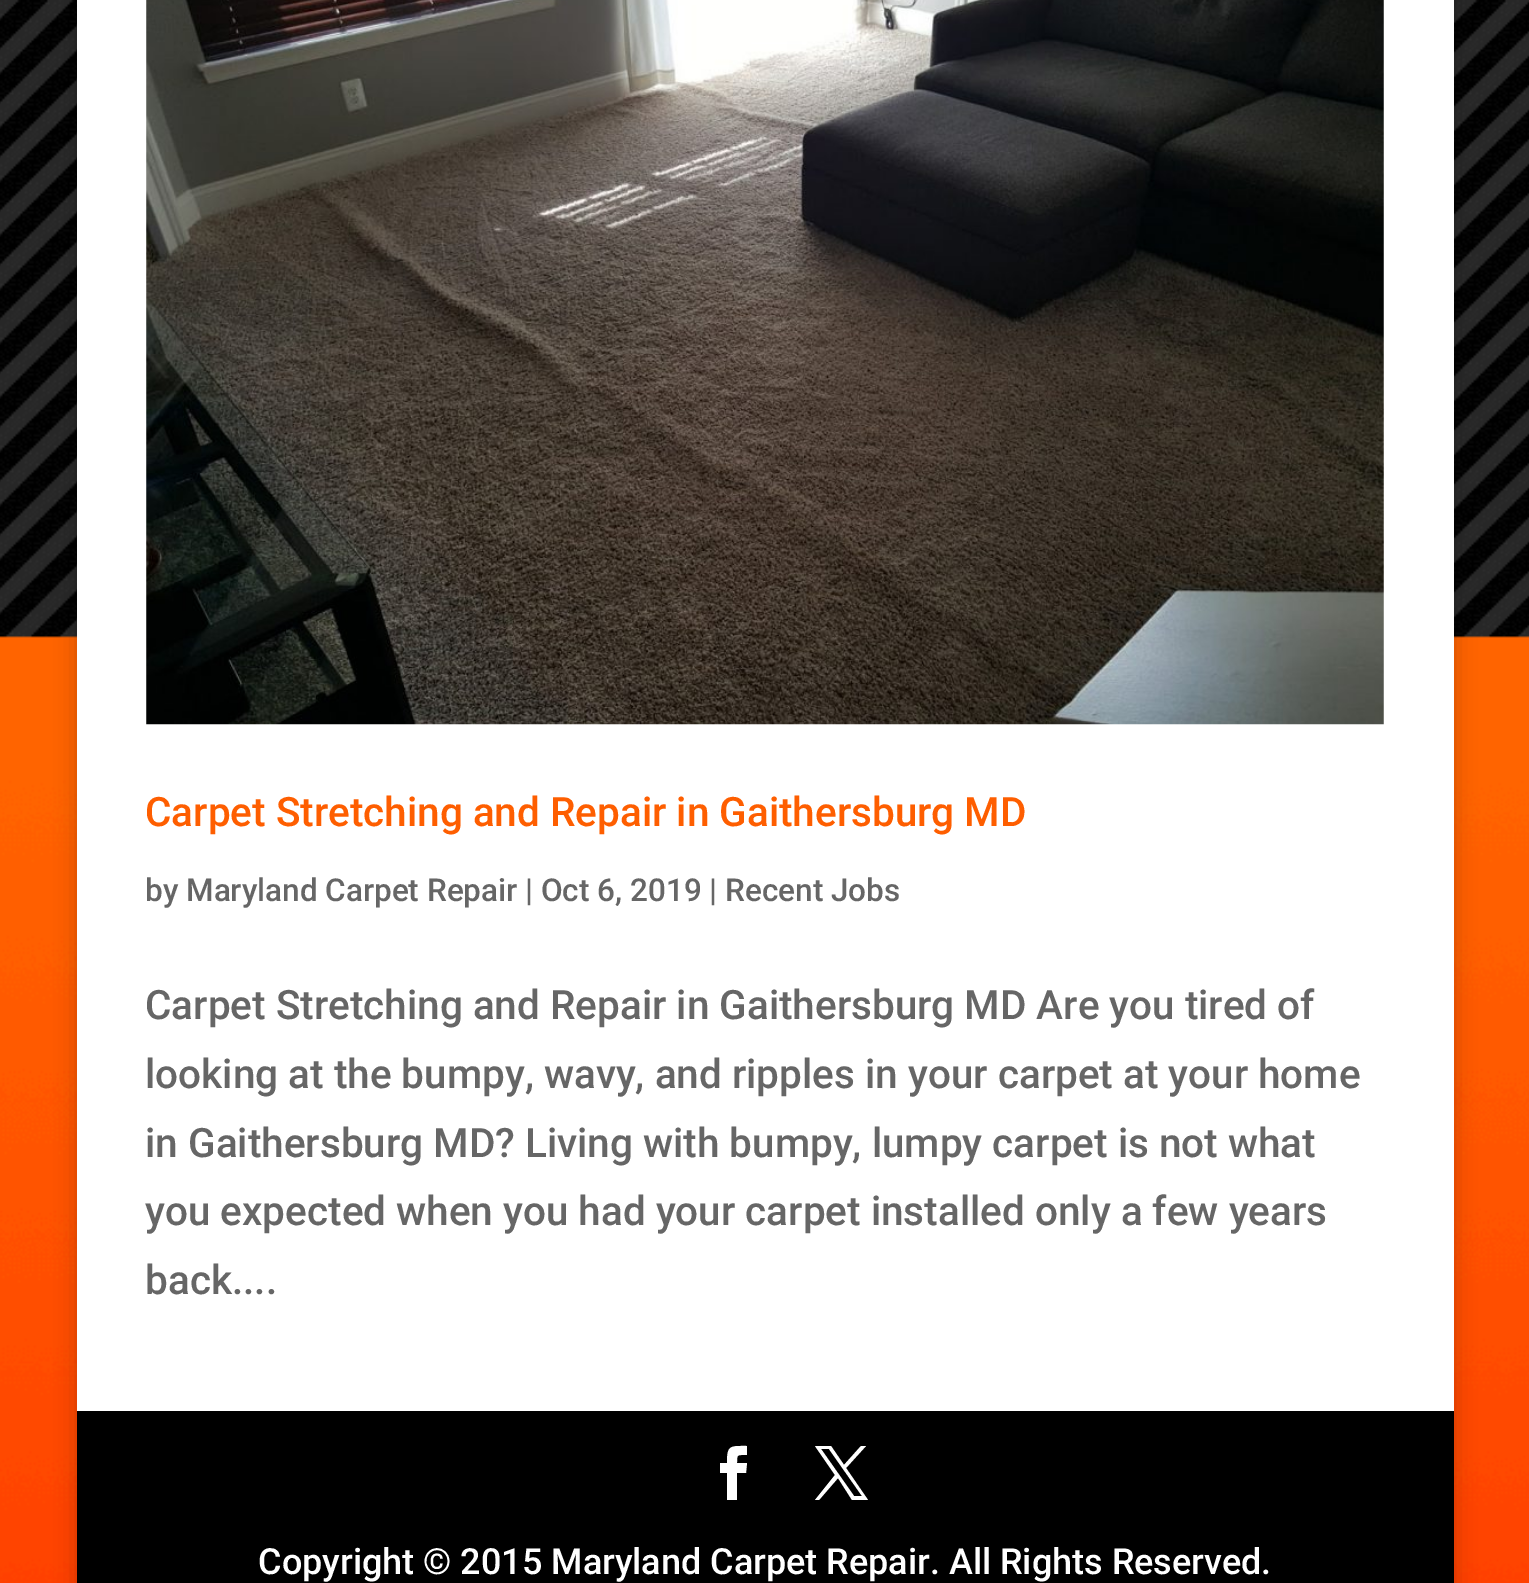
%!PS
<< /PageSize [1529 1583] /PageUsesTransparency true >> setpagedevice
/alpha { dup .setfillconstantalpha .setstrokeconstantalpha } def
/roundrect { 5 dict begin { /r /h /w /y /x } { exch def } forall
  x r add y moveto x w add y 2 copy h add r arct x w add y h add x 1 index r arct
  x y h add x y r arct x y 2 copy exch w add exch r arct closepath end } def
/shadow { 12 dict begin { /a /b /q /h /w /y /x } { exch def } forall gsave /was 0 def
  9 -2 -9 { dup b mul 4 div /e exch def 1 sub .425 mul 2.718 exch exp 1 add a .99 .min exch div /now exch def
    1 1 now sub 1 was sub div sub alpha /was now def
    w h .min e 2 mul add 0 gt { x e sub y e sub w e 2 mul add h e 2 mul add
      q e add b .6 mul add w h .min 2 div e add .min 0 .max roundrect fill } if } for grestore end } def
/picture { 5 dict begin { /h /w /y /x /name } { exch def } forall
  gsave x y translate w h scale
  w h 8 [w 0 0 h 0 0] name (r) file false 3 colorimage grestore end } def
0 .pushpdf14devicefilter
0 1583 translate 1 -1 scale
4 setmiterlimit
1 setgray
0 0 1529 1583 rectfill
(img1.rgb) 0 0 1529 1583 picture
0 setgray
77 -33 1377 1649 0 11 0.2 shadow
1 setgray
77 0 1377 1411 rectfill
(img2.rgb) 146 0 1238 725 picture
/Roboto-Medium [40.5 0 0 -40.5 0 0] selectfont
0.996 0.369 0 setrgbcolor
145 826 moveto (Carpet Stretching and Repair in Gaithersburg MD) show
/Roboto-Medium [31.5 0 0 -31.5 0 0] selectfont
0.4 setgray
145 901 moveto (by Maryland Carpet Repair | Oct 6, 2019 | Recent Jobs) show
/Roboto-Medium [40.5 0 0 -40.5 0 0] selectfont
145 1019 moveto (Carpet Stretching and Repair in Gaithersburg MD Are you tired of) show
145 1088 moveto (looking at the bumpy, wavy, and ripples in your carpet at your home) show
145 1157 moveto (in Gaithersburg MD? Living with bumpy, lumpy carpet is not what) show
145 1225 moveto (you expected when you had your carpet installed only a few years) show
145 1294 moveto (back....) show
0 setgray
77 1411 1377 172 rectfill
1 setgray
newpath 727 1500 moveto 737 1500 lineto 737 1473 lineto 746 1473 lineto 747 1463 lineto 737 1463 lineto 737 1454 737 1455 747 1455 curveto 747 1446 lineto 730 1446 727 1445 727 1463 curveto 720 1463 lineto 720 1473 lineto 727 1473 lineto closepath fill
newpath 815 1446 moveto 835 1475 lineto 815 1500 lineto 819 1500 lineto 838 1478 lineto 852 1500 lineto 868 1500 lineto 846 1468 lineto 866 1446 lineto 861 1446 lineto 844 1465 lineto 831 1446 lineto closepath 821 1449 moveto 829 1449 lineto 862 1496 lineto 854 1496 lineto closepath fill
/Roboto-Medium [36 0 0 -36 0 0] selectfont
258 1574 moveto (Copyright © 2015 Maryland Carpet Repair. All Rights Reserved.) show
.poppdf14devicefilter showpage
